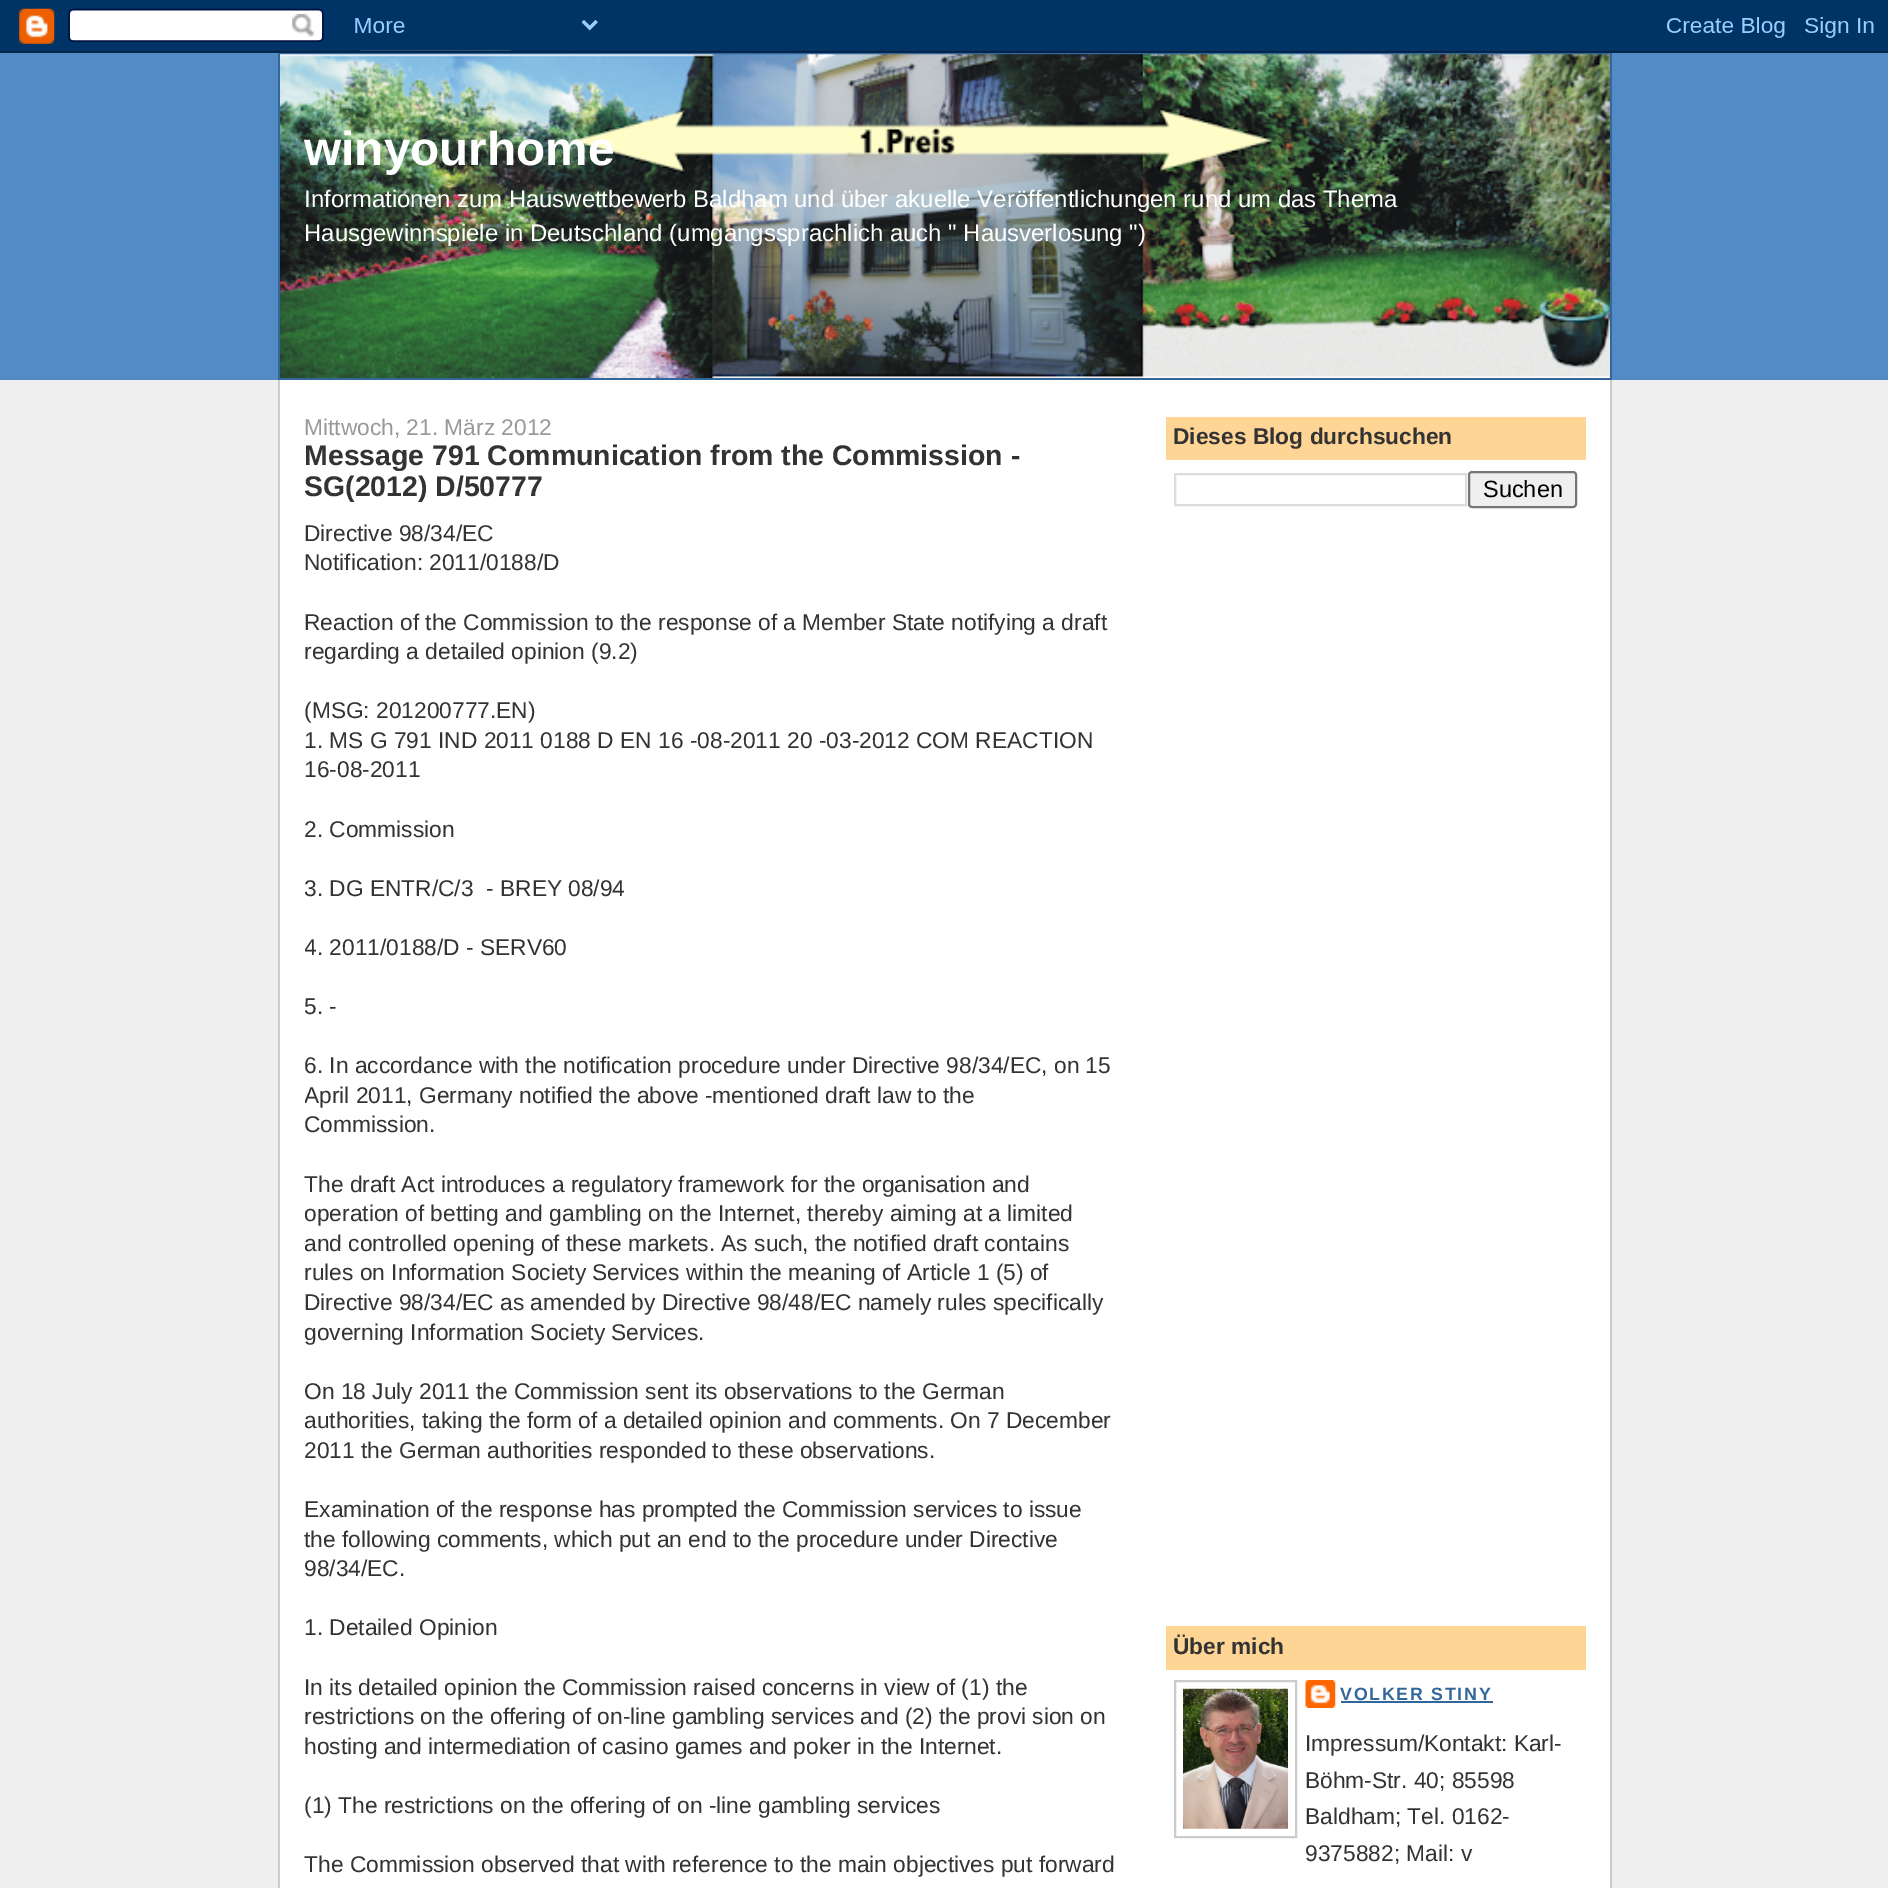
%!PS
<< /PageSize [1888 1888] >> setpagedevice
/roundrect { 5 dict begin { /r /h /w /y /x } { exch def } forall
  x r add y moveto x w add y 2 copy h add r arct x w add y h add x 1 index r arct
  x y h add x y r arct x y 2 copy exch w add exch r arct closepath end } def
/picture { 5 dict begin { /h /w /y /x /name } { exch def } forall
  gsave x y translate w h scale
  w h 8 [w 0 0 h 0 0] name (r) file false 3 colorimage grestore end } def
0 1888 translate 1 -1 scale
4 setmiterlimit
0.937 setgray
0 0 1888 1888 rectfill
(img1.rgb) 0 0 1888 53 picture
0.322 0.545 0.773 setrgbcolor
0 53 1888 327 rectfill
0.2 0.4 0.6 setrgbcolor
278 53 1334 327 rectfill
(img2.rgb) 280 54 1330 324 picture
/LiberationSans-Bold [47.75 0 0 -47.75 0 0] selectfont
1 setgray
304 165 moveto (winyourhome) show
/LiberationSans-Regular [23.9 0 0 -23.9 0 0] selectfont
304 207 moveto (Informationen zum Hauswettbewerb Baldham und über akuelle Veröffentlichungen rund um das Thema) show
304 241 moveto (Hausgewinnspiele in Deutschland \(umgangssprachlich auch " Hausverlosung "\)) show
280 380 1330 1508 rectfill
0.8 setgray
1610 380 2 1508 rectfill
278 380 2 1508 rectfill
/LiberationSans-Regular [22.75 0 0 -22.75 0 0] selectfont
0.6 setgray
304 435 moveto (Mittwoch, 21. März 2012) show
/LiberationSans-Bold [28.45 0 0 -28.45 0 0] selectfont
0.2 setgray
304 465 moveto (Message 791 Communication from the Commission -) show
304 496 moveto (SG\(2012\) D/50777) show
/LiberationSans-Regular [22.75 0 0 -22.75 0 0] selectfont
304 541 moveto (Directive 98/34/EC) show
304 570 moveto (Notification: 2011/0188/D) show
304 630 moveto (Reaction of the Commission to the response of a Member State notifying a draft) show
304 659 moveto (regarding a detailed opinion \(9.2\)) show
304 718 moveto (\(MSG: 201200777.EN\)) show
304 748 moveto (1. MS G 791 IND 2011 0188 D EN 16 -08-2011 20 -03-2012 COM REACTION) show
304 777 moveto (16-08-2011) show
304 837 moveto (2. Commission) show
gsave
305 380 812 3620 rectclip
304 896 moveto (3. DG ENTR/C/3  - BREY 08/94) show
304 955 moveto (4. 2011/0188/D - SERV60) show
grestore
304 1014 moveto (5. -) show
gsave
305 380 812 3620 rectclip
304 1073 moveto (6. In accordance with the notification procedure under Directive 98/34/EC, on 15) show
304 1103 moveto (April 2011, Germany notified the above -mentioned draft law to the) show
304 1132 moveto (Commission.) show
grestore
304 1192 moveto (The draft Act introduces a regulatory framework for the organisation and) show
gsave
305 380 812 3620 rectclip
304 1221 moveto (operation of betting and gambling on the Internet, thereby aiming at a limited) show
304 1251 moveto (and controlled opening of these markets. As such, the notified draft contains) show
grestore
304 1280 moveto (rules on Information Society Services within the meaning of Article 1 \(5\) of) show
304 1310 moveto (Directive 98/34/EC as amended by Directive 98/48/EC namely rules specifically) show
gsave
305 380 812 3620 rectclip
304 1340 moveto (governing Information Society Services.) show
304 1399 moveto (On 18 July 2011 the Commission sent its observations to the German) show
304 1428 moveto (authorities, taking the form of a detailed opinion and comments. On 7 December) show
grestore
304 1458 moveto (2011 the German authorities responded to these observations.) show
304 1517 moveto (Examination of the response has prompted the Commission services to issue) show
304 1547 moveto (the following comments, which put an end to the procedure under Directive) show
gsave
305 380 812 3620 rectclip
304 1576 moveto (98/34/EC.) show
grestore
304 1635 moveto (1. Detailed Opinion) show
304 1695 moveto (In its detailed opinion the Commission raised concerns in view of \(1\) the) show
304 1724 moveto (restrictions on the offering of on-line gambling services and \(2\) the provi sion on) show
304 1754 moveto (hosting and intermediation of casino games and poker in the Internet.) show
304 1813 moveto (\(1\) The restrictions on the offering of on -line gambling services) show
304 1872 moveto (The Commission observed that with reference to the main objectives put forward) show
1 0.835 0.584 setrgbcolor
1166 417 420 43 rectfill
/LiberationSans-Bold [22.75 0 0 -22.75 0 0] selectfont
0.2 setgray
1173 444 moveto (Dieses Blog durchsuchen) show
0.867 setgray
2 setlinewidth
1175 474 291 31 rectstroke
0.937 setgray
1469 472 107 35 3 roundrect gsave fill grestore
0.463 setgray
stroke
/LiberationSans-Regular [23.5 0 0 -23.5 0 0] selectfont
0 setgray
1483 497 moveto (Suchen) show
1 0.835 0.584 setrgbcolor
1166 1626 420 44 rectfill
/LiberationSans-Bold [22.75 0 0 -22.75 0 0] selectfont
0.2 setgray
1173 1654 moveto (Über mich) show
0.8 setgray
1175 1681 121 156 rectstroke
(img3.rgb) 1183 1688 105 141 picture
(img4.rgb) 1305 1680 31 28 picture
/LiberationSans-Bold [17.75 0 0 -17.75 0 0] selectfont
0.2 0.4 0.6 setrgbcolor
1340 1700 moveto 1.75 0 (VOLKER STINY) ashow
1341 1701 152 2 rectfill
/LiberationSans-Regular [22.75 0 0 -22.75 0 0] selectfont
0.2 setgray
1305 1751 moveto (Impressum/Kontakt: Karl-) show
1305 1788 moveto (Böhm-Str. 40; 85598) show
1305 1824 moveto (Baldham; Tel. 0162-) show
1305 1861 moveto (9375882; Mail: v) show
showpage
